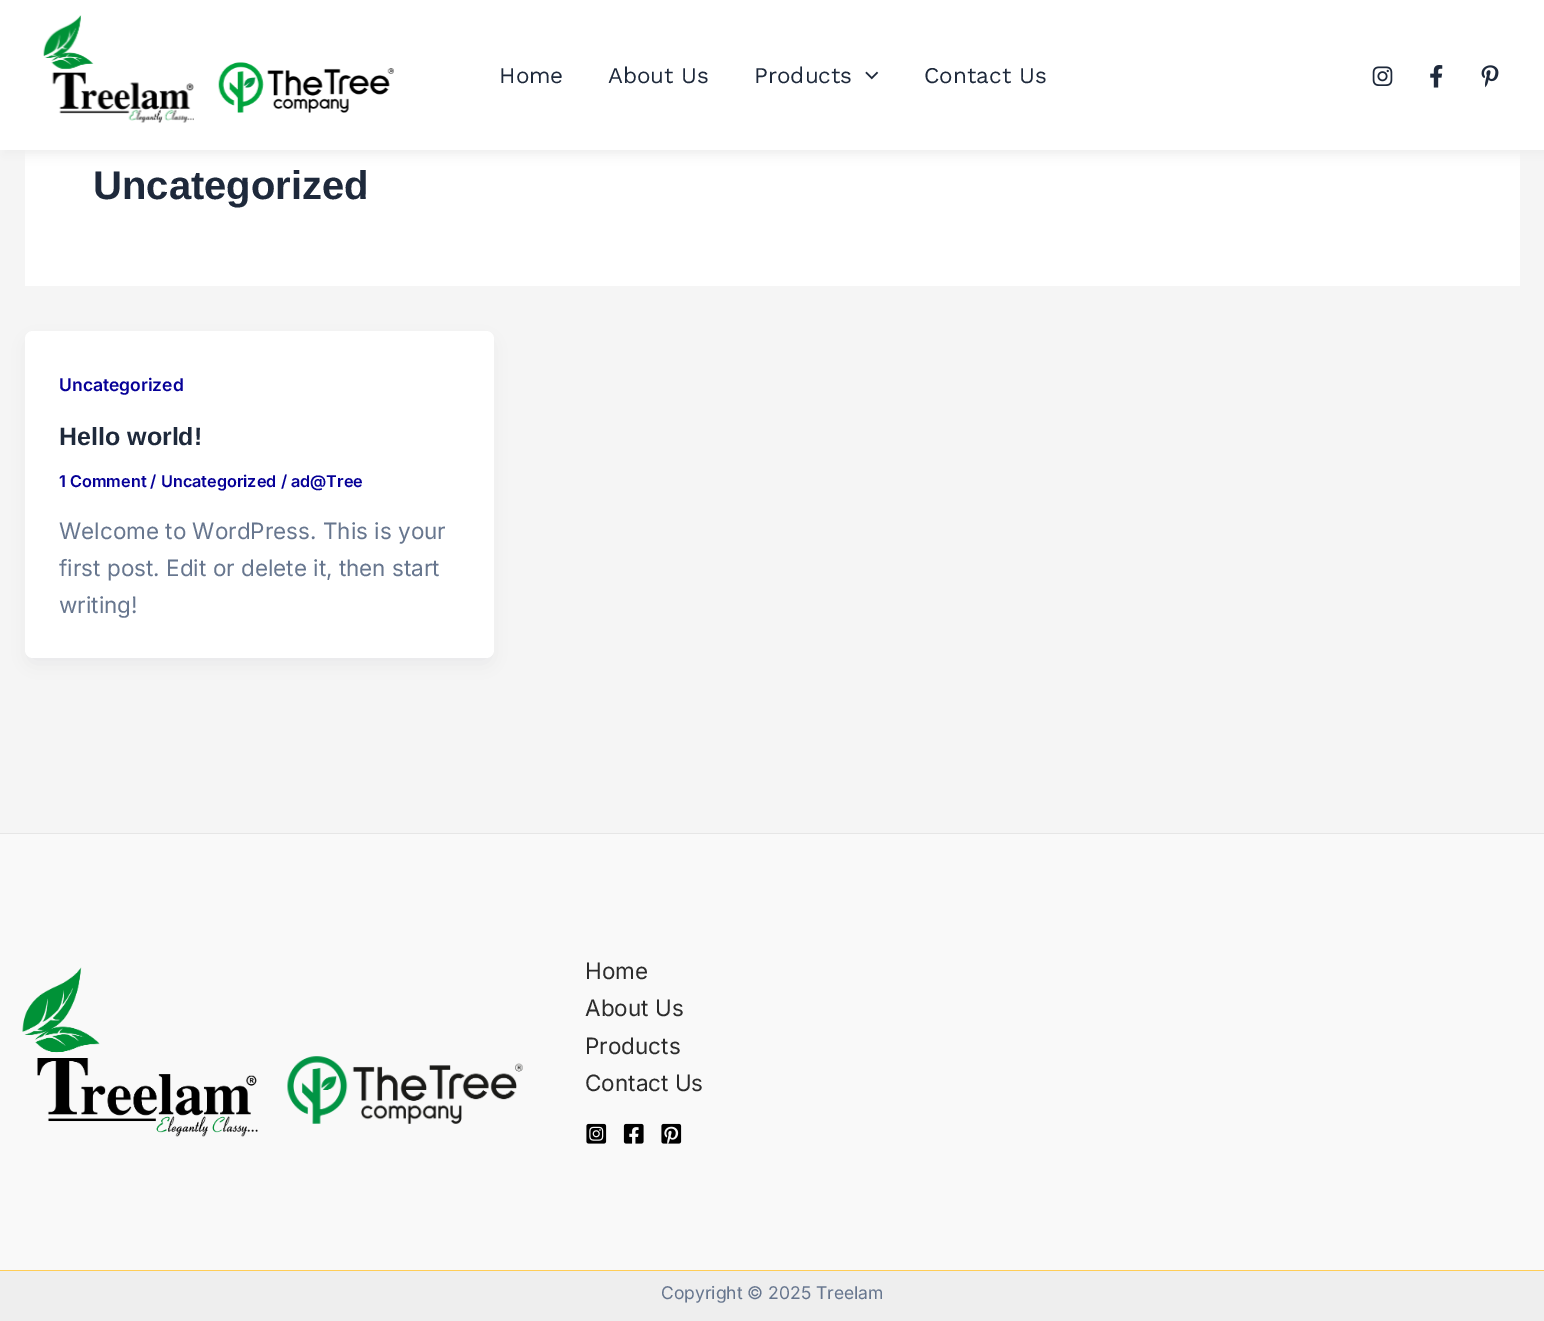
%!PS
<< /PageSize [1544 1321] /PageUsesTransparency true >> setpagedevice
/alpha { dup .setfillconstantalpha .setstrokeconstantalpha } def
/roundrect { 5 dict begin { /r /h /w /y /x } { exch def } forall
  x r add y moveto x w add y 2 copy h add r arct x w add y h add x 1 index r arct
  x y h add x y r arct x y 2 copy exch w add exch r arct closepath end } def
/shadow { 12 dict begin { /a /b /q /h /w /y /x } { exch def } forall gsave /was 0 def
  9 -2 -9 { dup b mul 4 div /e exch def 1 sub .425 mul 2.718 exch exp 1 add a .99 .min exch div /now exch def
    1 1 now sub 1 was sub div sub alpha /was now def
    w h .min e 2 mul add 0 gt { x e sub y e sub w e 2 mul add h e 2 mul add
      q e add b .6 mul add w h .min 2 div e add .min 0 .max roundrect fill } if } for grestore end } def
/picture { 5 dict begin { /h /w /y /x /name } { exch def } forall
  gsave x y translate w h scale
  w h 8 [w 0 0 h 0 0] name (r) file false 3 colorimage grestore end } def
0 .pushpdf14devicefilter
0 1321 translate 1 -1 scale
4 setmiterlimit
0.961 setgray
0 0 1544 1321 rectfill
1 setgray
25 150 1495 136 rectfill
0.933 setgray
3 5 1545 150 0 5 1 shadow
1 setgray
0 0 1544 150 rectfill
(img1.rgb) 43 15 151 108 picture
(img2.rgb) 218 62 176 51 picture
/WorkSans-Regular [22.5 0 0 -22.5 0 0] selectfont
0.118 0.161 0.231 setrgbcolor
499 83 moveto (Home) show
608 83 moveto (About Us) show
754 83 moveto (Products) show
(img3.rgb) 865 71 14 9 picture
924 83 moveto (Contact Us) show
(img4.rgb) 1372 66 21 20 picture
(img5.rgb) 1430 65 13 23 picture
(img6.rgb) 1481 65 18 23 picture
/LiberationSans-Bold [40 0 0 -40 0 0] selectfont
93 199 moveto (Uncategorized) show
0.063 0.094 0.157 setrgbcolor
28 341 463 322 5 9.5 0.05 shadow
1 setgray
25 331 469 327 8 roundrect fill
/Inter-SemiBold [17.5 0 0 -17.5 0 0] selectfont
0.024 0 0.592 setrgbcolor
59 391 moveto (Uncategorized) show
/LiberationSans-Bold [25 0 0 -25 0 0] selectfont
0.118 0.161 0.231 setrgbcolor
59 445 moveto (Hello world!) show
/Inter-SemiBold [16.25 0 0 -16.25 0 0] selectfont
0.024 0 0.592 setrgbcolor
59 487 moveto (1 Comment / Uncategorized / ad@Tree) show
/Inter-Regular [22.5 0 0 -22.5 0 0] selectfont
0.404 0.463 0.557 setrgbcolor
59 539 moveto (Welcome to WordPress. This is your) show
59 576 moveto (first post. Edit or delete it, then start) show
59 613 moveto (writing!) show
0.976 setgray
0 834 1544 436 rectfill
0.902 setgray
0 833 1544 1 rectfill
(img7.rgb) 22 967 236 170 picture
(img8.rgb) 287 1056 236 68 picture
0.173 setgray
585 979 moveto (Home) show
585 1016 moveto (About Us) show
585 1054 moveto (Products) show
585 1091 moveto (Contact Us) show
(img9.rgb) 586 1123 21 21 picture
(img10.rgb) 623 1123 21 21 picture
(img11.rgb) 661 1123 21 21 picture
0.933 setgray
0 1271 1544 50 rectfill
1 0.804 0.341 setrgbcolor
0 1270 1544 1 rectfill
/Inter-Regular [17.5 0 0 -17.5 0 0] selectfont
0.404 0.463 0.557 setrgbcolor
661 1299 moveto (Copyright © 2025 Treelam) show
.poppdf14devicefilter showpage
